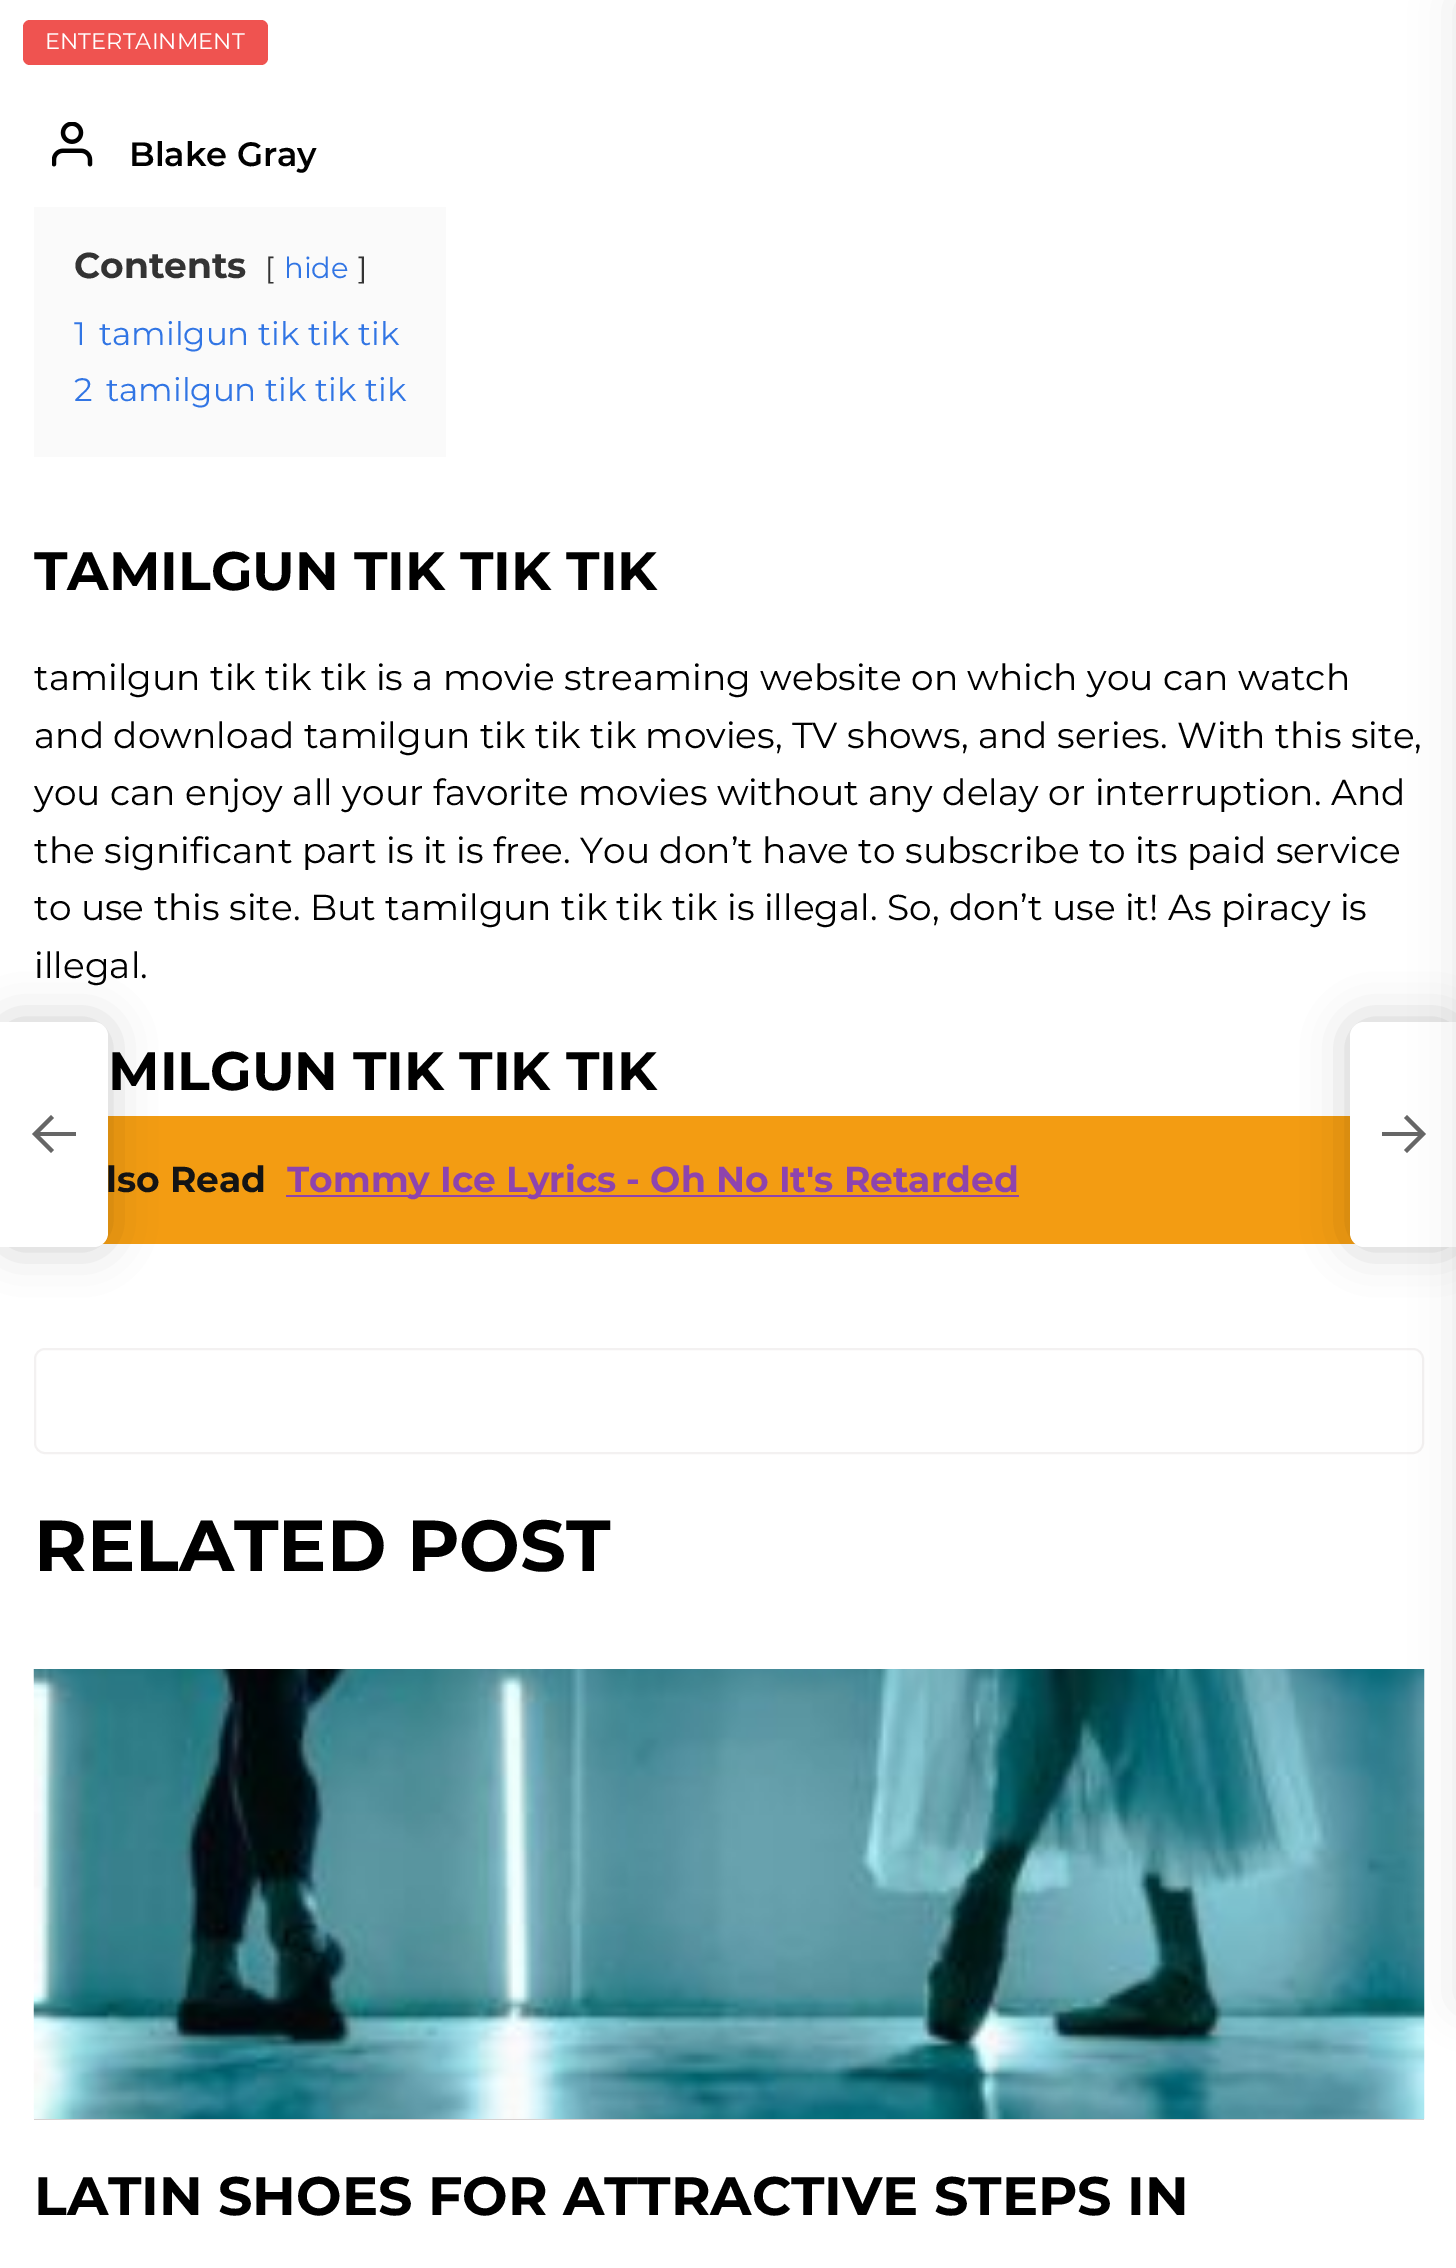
%!PS
<< /PageSize [1456 2268] /PageUsesTransparency true >> setpagedevice
/alpha { dup .setfillconstantalpha .setstrokeconstantalpha } def
/roundrect { 5 dict begin { /r /h /w /y /x } { exch def } forall
  x r add y moveto x w add y 2 copy h add r arct x w add y h add x 1 index r arct
  x y h add x y r arct x y 2 copy exch w add exch r arct closepath end } def
/shadow { 12 dict begin { /a /b /q /h /w /y /x } { exch def } forall gsave /was 0 def
  9 -2 -9 { dup b mul 4 div /e exch def 1 sub .425 mul 2.718 exch exp 1 add a .99 .min exch div /now exch def
    1 1 now sub 1 was sub div sub alpha /was now def
    w h .min e 2 mul add 0 gt { x e sub y e sub w e 2 mul add h e 2 mul add
      q e add b .6 mul add w h .min 2 div e add .min 0 .max roundrect fill } if } for grestore end } def
/picture { 5 dict begin { /h /w /y /x /name } { exch def } forall
  gsave x y translate w h scale
  w h 8 [w 0 0 h 0 0] name (r) file false 3 colorimage grestore end } def
0 .pushpdf14devicefilter
0 2268 translate 1 -1 scale
4 setmiterlimit
1 setgray
0 0 1456 2268 rectfill
0.937 0.325 0.314 setrgbcolor
23 20 245 45 7 roundrect fill
/Montserrat-Regular [22.5 0 0 -22.5 0 0] selectfont
1 setgray
45 49 moveto (ENTERTAINMENT) show
(img1.rgb) 52 122 41 45 picture
/Montserrat-SemiBold [33.75 0 0 -33.75 0 0] selectfont
0 setgray
129 166 moveto (Blake Gray) show
0.98 setgray
34 207 412 250 rectfill
/Montserrat-Bold [36 0 0 -36 0 0] selectfont
0.2 setgray
74 278 moveto (Contents) show
/Montserrat-Regular [29 0 0 -29 0 0] selectfont
265 278 moveto ([) show
0.192 0.459 0.894 setrgbcolor
284 278 moveto (hide) show
0.2 setgray
358 278 moveto (]) show
/Montserrat-Regular [32.5 0 0 -32.5 0 0] selectfont
0.192 0.459 0.894 setrgbcolor
74 345 moveto (1) show
99 345 moveto (tamilgun tik tik tik) show
74 401 moveto (2) show
106 401 moveto (tamilgun tik tik tik) show
/Montserrat-Bold [54 0 0 -54 0 0] selectfont
0 setgray
34 590 moveto (TAMILGUN TIK TIK TIK) show
/Montserrat-Regular [36 0 0 -36 0 0] selectfont
34 690 moveto (tamilgun tik tik tik is a movie streaming website on which you can watch) show
34 748 moveto (and download tamilgun tik tik tik movies, TV shows, and series. With this site,) show
34 805 moveto (you can enjoy all your favorite movies without any delay or interruption. And) show
34 863 moveto (the significant part is it is free. You don’t have to subscribe to its paid service) show
34 920 moveto (to use this site. But tamilgun tik tik tik is illegal. So, don’t use it! As piracy is) show
34 978 moveto (illegal.) show
/Montserrat-Bold [54 0 0 -54 0 0] selectfont
108 1090 moveto (MILGUN TIK TIK TIK) show
0.953 0.612 0.071 setrgbcolor
102 1116 1254 128 rectfill
/Montserrat-Bold [36 0 0 -36 0 0] selectfont
0.078 setgray
106 1192 moveto (lso Read) show
0.557 0.267 0.678 setrgbcolor
286 1195 733 2 rectfill
287 1192 moveto (Tommy Ice Lyrics - Oh No It's Retarded) show
0.953 0.945 0.945 setrgbcolor
2 setlinewidth
35 1349 1388 104 10 roundrect stroke
0 setgray
0 1022 108 225 14 22.5 0.2 shadow
1 setgray
newpath 0 1022 moveto 94 1022 lineto 101.5 1022 108 1028.5 108 1036 curveto 108 1233 lineto 108 1240.5 101.5 1247 94 1247 curveto 0 1247 lineto closepath fill
0.4 setgray
newpath 40 1132 moveto 54 1118 lineto 51 1115 lineto 32 1134 lineto 51 1153 lineto 54 1150 lineto 40 1136 lineto 76 1136 lineto 76 1132 lineto closepath fill
0 setgray
1350 1022 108 225 14 22.5 0.2 shadow
1 setgray
newpath 1364 1022 moveto 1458 1022 lineto 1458 1247 lineto 1364 1247 lineto 1356.5 1247 1350 1240.5 1350 1233 curveto 1350 1036 lineto 1350 1028.5 1356.5 1022 1364 1022 curveto closepath fill
0.4 setgray
newpath 1418 1132 moveto 1404 1118 lineto 1407 1115 lineto 1426 1134 lineto 1407 1153 lineto 1404 1150 lineto 1418 1136 lineto 1382 1136 lineto 1382 1132 lineto closepath fill
/Montserrat-Bold [72 0 0 -72 0 0] selectfont
0 setgray
34 1571 moveto (RELATED POST) show
0.843 0.82 0.82 setrgbcolor
34 2119 1390 1 rectfill
(img2.rgb) 33 1669 1392 450 picture
/Montserrat-Bold [54 0 0 -54 0 0] selectfont
0 setgray
34 2215 moveto (LATIN SHOES FOR ATTRACTIVE STEPS IN) show
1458 0 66 2003 0 22.5 0.1 shadow
.poppdf14devicefilter showpage
